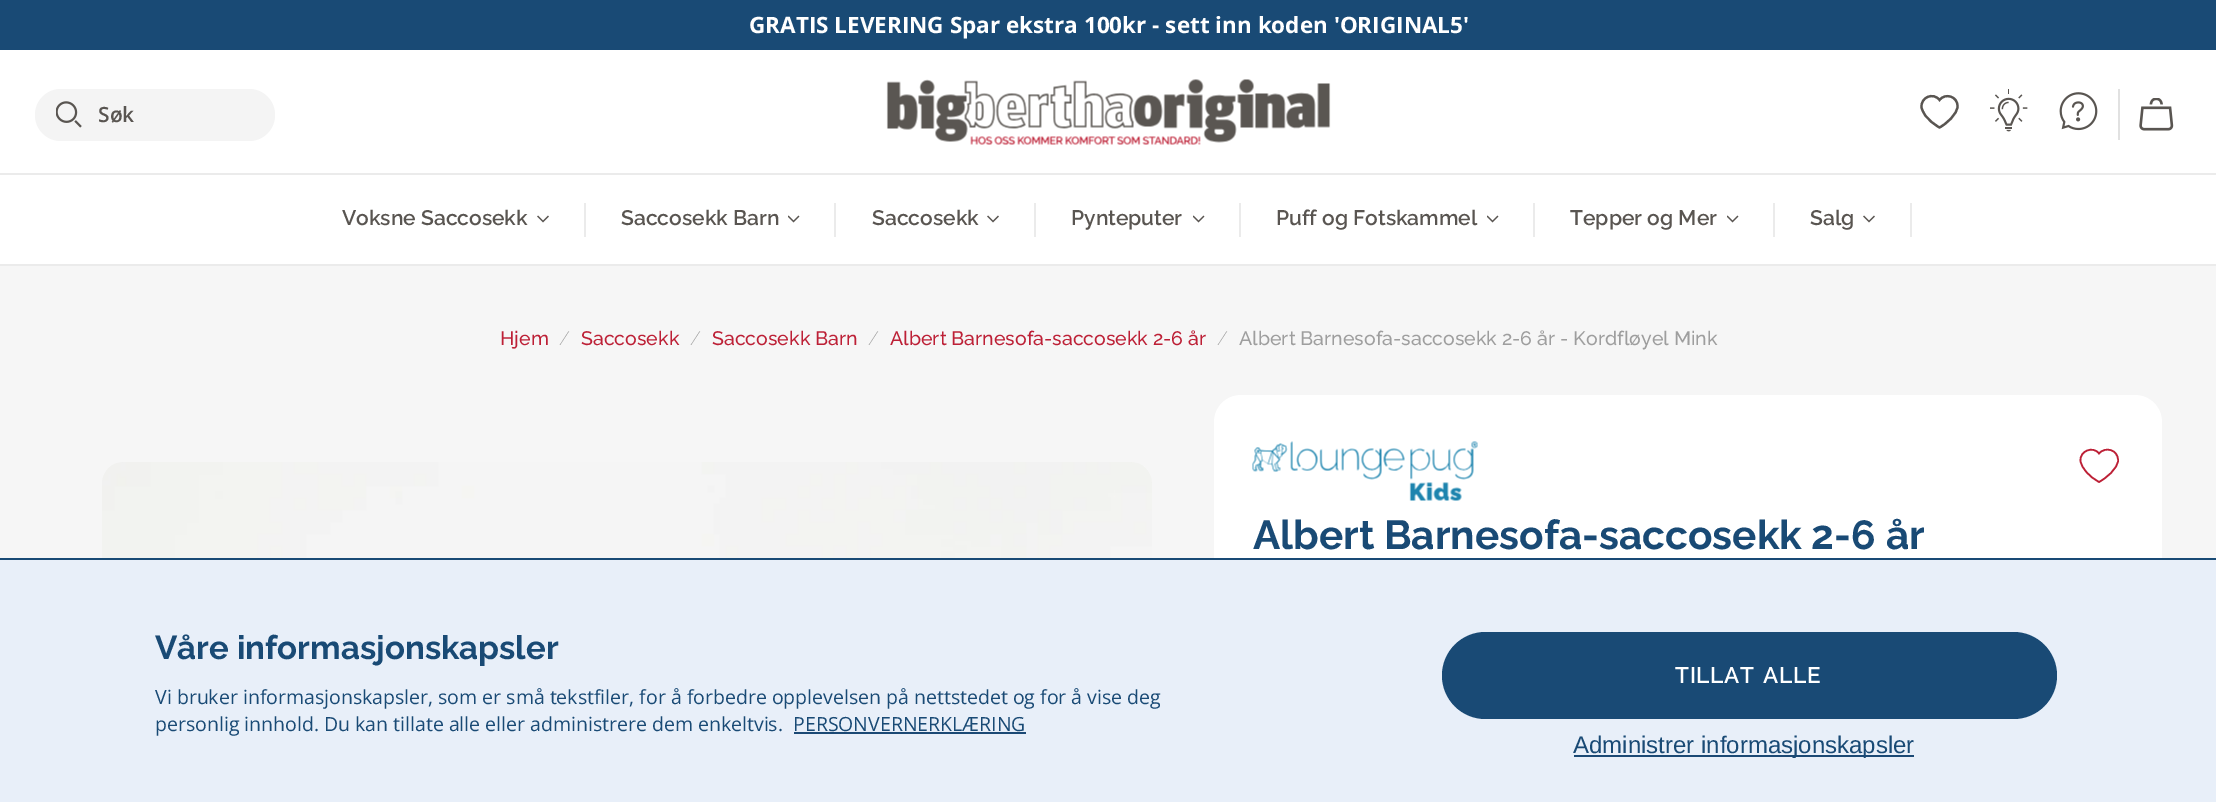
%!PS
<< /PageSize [2216 802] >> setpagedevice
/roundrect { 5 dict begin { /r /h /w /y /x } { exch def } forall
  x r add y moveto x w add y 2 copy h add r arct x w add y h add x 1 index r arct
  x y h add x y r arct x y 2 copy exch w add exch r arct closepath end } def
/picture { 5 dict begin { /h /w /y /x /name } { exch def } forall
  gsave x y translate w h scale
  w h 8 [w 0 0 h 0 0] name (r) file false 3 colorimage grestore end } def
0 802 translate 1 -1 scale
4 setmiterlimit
1 setgray
0 0 2216 802 rectfill
0.098 0.29 0.459 setrgbcolor
0 0 2216 50 rectfill
/OpenSans-Bold [22.5 0 0 -22.5 0 0] selectfont
1 setgray
749 33 moveto (GRATIS LEVERING Spar ekstra 100kr - sett inn koden 'ORIGINAL5') show
0.957 setgray
35 89 240 52 26 roundrect fill
(img1.rgb) 56 101 26 27 picture
/OpenSans-SemiBold [21 0 0 -21 0 0] selectfont
0.349 0.333 0.318 setrgbcolor
98 122 moveto (Søk) show
(img2.rgb) 886 79 445 66 picture
0.882 setgray
2118 89 2 51 rectfill
0.349 0.333 0.318 setrgbcolor
2.2 setlinewidth
newpath 1957.5 106 moveto 1957.5 96.5 1945.5 92.5 1939.5 100 curveto 1933.5 92 1920.5 97 1921.5 107.5 curveto 1922 110 1923.5 112.5 1925 115 curveto 1928.5 120 1934 124.5 1939.5 127.5 curveto 1946 124 1957.5 114.5 1957.5 106 curveto closepath stroke
(img3.rgb) 1990 89 38 43 picture
(img4.rgb) 2059 92 39 39 picture
(img5.rgb) 2139 98 35 33 picture
0.922 setgray
0 173 2216 2 rectfill
0 264 2216 2 rectfill
/Raleway-SemiBold [21 0 0 -21 0 0] selectfont
0.349 0.333 0.318 setrgbcolor
342 225 moveto (Voksne Saccosekk) show
(img6.rgb) 537 215 12 8 picture
0.922 setgray
584 203 2 34 rectfill
0.349 0.333 0.318 setrgbcolor
621 225 moveto (Saccosekk Barn) show
(img7.rgb) 788 215 12 8 picture
0.922 setgray
834 203 2 34 rectfill
0.349 0.333 0.318 setrgbcolor
872 225 moveto (Saccosekk) show
(img6.rgb) 987 215 12 8 picture
0.922 setgray
1034 203 2 34 rectfill
0.349 0.333 0.318 setrgbcolor
1071 225 moveto (Pynteputer) show
(img7.rgb) 1193 215 12 8 picture
0.922 setgray
1239 203 2 34 rectfill
0.349 0.333 0.318 setrgbcolor
1276 225 moveto (Puff og Fotskammel) show
(img7.rgb) 1487 215 12 8 picture
0.922 setgray
1533 203 2 34 rectfill
0.349 0.333 0.318 setrgbcolor
1570 225 moveto (Tepper og Mer) show
(img7.rgb) 1727 215 12 8 picture
0.922 setgray
1773 203 2 34 rectfill
0.349 0.333 0.318 setrgbcolor
1810 225 moveto (Salg) show
(img6.rgb) 1863 215 12 8 picture
0.922 setgray
1910 203 2 34 rectfill
0.965 setgray
0 266 2216 292 rectfill
/Raleway-Medium [19.5 0 0 -19.5 0 0] selectfont
0.741 0.125 0.212 setrgbcolor
500 345 moveto (Hjem) show
/Raleway-ExtraLight [19.5 0 0 -19.5 0 0] selectfont
0.62 setgray
559 345 moveto (/) show
/Raleway-Medium [19.5 0 0 -19.5 0 0] selectfont
0.741 0.125 0.212 setrgbcolor
581 345 moveto (Saccosekk) show
/Raleway-ExtraLight [19.5 0 0 -19.5 0 0] selectfont
0.62 setgray
690 345 moveto (/) show
/Raleway-Medium [19.5 0 0 -19.5 0 0] selectfont
0.741 0.125 0.212 setrgbcolor
712 345 moveto (Saccosekk Barn) show
/Raleway-ExtraLight [19.5 0 0 -19.5 0 0] selectfont
0.62 setgray
868 345 moveto (/) show
/Raleway-Medium [19.5 0 0 -19.5 0 0] selectfont
0.741 0.125 0.212 setrgbcolor
890 345 moveto (Albert Barnesofa-saccosekk 2-6 år) show
/Raleway-ExtraLight [19.5 0 0 -19.5 0 0] selectfont
0.62 setgray
1217 345 moveto (/) show
/Raleway-Medium [19.5 0 0 -19.5 0 0] selectfont
1239 345 moveto (Albert Barnesofa-saccosekk 2-6 år - Kordfløyel Mink) show
(img8.rgb) 102 462 1050 96 picture
1 setgray
1214 395 948 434 27 roundrect fill
0.741 0.125 0.212 setrgbcolor
1.6 setlinewidth
newpath 2118 460 moveto 2118 450 2105.5 446 2099 453.5 curveto 2093 445.5 2079.5 451 2080.5 461 curveto 2081 465 2083.5 468.5 2086 471.5 curveto 2089.5 476 2094.5 479.5 2099 482 curveto 2105.5 478.5 2118 469 2118 460 curveto closepath stroke
(img9.rgb) 1252 441 226 60 picture
/Raleway-Bold [40.5 0 0 -40.5 0 0] selectfont
0.098 0.29 0.459 setrgbcolor
1253 549 moveto (Albert Barnesofa-saccosekk 2-6 år) show
0.91 0.937 0.976 setrgbcolor
0 560 2216 242 rectfill
0.098 0.29 0.459 setrgbcolor
0 558 2216 2 rectfill
/Raleway-Bold [33 0 0 -33 0 0] selectfont
155 659 moveto (Våre informasjonskapsler) show
/OpenSans-Regular [19.5 0 0 -19.5 0 0] selectfont
155 704 moveto (Vi bruker informasjonskapsler, som er små tekstfiler, for å forbedre opplevelsen på nettstedet og for å vise deg) show
155 731 moveto (personlig innhold. Du kan tillate alle eller administrere dem enkeltvis.) show
793 731 moveto (PERSONVERNERKLÆRING) show
0.106 0.286 0.459 setrgbcolor
794 732 232 2 rectfill
0.098 0.29 0.459 setrgbcolor
1442 632 615 87 43.5 roundrect fill
/Raleway-SemiBold [22.5 0 0 -22.5 0 0] selectfont
1 setgray
1675 683 moveto 2 0 32 0.75 0 (TILLAT ALLE) awidthshow
0.106 0.286 0.459 setrgbcolor
1574 755 340 2 rectfill
/LiberationSans-Regular [24 0 0 -24 0 0] selectfont
0.098 0.29 0.459 setrgbcolor
1573 753 moveto (Administrer informasjonskapsler) show
showpage
